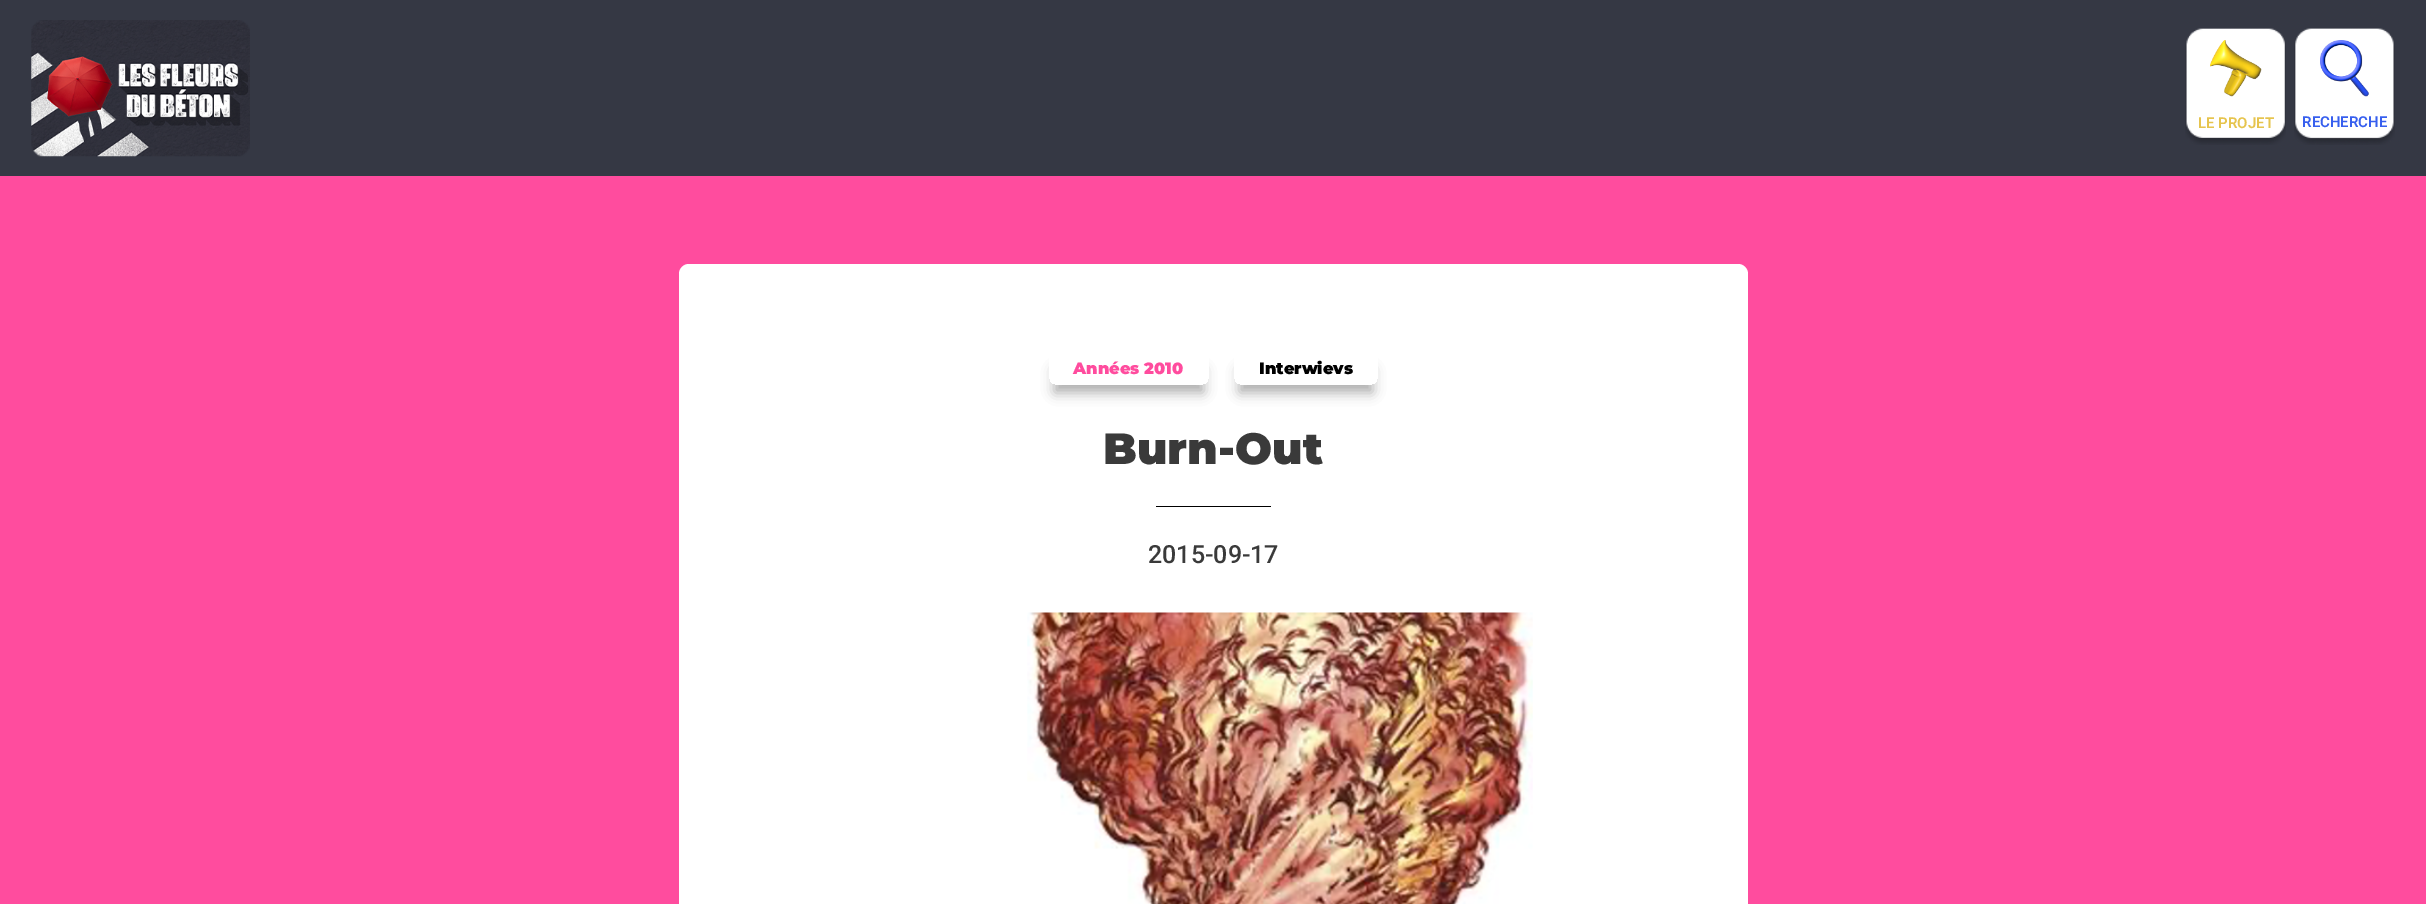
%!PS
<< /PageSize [2426 904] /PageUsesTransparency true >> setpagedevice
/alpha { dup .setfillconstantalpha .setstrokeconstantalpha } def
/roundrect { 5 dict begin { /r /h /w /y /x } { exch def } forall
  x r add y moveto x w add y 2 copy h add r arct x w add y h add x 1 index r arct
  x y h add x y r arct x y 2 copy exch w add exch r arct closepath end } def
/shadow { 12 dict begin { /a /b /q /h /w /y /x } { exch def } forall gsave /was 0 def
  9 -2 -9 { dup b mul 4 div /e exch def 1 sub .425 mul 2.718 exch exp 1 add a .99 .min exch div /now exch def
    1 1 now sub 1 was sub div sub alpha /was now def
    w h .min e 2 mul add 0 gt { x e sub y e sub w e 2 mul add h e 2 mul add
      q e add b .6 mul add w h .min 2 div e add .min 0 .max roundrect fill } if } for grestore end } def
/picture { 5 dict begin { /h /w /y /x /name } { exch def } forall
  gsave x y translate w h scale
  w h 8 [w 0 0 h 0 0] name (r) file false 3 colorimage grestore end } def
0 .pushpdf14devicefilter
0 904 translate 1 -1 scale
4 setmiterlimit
1 0.298 0.62 setrgbcolor
0 0 2426 904 rectfill
0.208 0.22 0.267 setrgbcolor
0 0 2426 176 rectfill
(img1.rgb) 31 20 219 137 picture
(img2.rgb) 2185 28 101 117 picture
(img3.rgb) 2210 40 52 57 picture
/Roboto-SemiBold [15 0 0 -15 0 0] selectfont
0.902 0.769 0.306 setrgbcolor
2198 128 moveto (LE PROJET) show
(img4.rgb) 2294 28 101 117 picture
(img5.rgb) 2320 40 49 57 picture
0.216 0.373 0.933 setrgbcolor
2302 127 moveto (RECHERCHE) show
1 setgray
679 264 1069 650 10 roundrect fill
gsave
newpath 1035 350 moveto 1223 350 lineto 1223 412 lineto 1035 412 lineto closepath 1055 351 moveto 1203 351 lineto 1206.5 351 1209 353.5 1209 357 curveto 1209 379 lineto 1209 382.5 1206.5 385 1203 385 curveto 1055 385 lineto 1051.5 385 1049 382.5 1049 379 curveto 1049 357 lineto 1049 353.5 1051.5 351 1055 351 curveto closepath eoclip newpath
0 setgray
1054 369 150 24 1 6 0.31 shadow
grestore
/Montserrat-Black [16.25 0 0 -16.25 0 0] selectfont
1 0.298 0.62 setrgbcolor
1073 374 moveto (Années 2010) show
gsave
newpath 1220 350 moveto 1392 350 lineto 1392 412 lineto 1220 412 lineto closepath 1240 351 moveto 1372 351 lineto 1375.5 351 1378 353.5 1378 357 curveto 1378 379 lineto 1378 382.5 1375.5 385 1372 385 curveto 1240 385 lineto 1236.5 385 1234 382.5 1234 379 curveto 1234 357 lineto 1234 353.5 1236.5 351 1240 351 curveto closepath eoclip newpath
0 setgray
1239 369 134 24 1 6 0.31 shadow
grestore
0 setgray
1259 374 moveto (Interwievs) show
/Montserrat-Black [43.75 0 0 -43.75 0 0] selectfont
0.227 setgray
1103 464 moveto (Burn-Out) show
0 setgray
1156 506 115 1 rectfill
/Roboto-Medium [25 0 0 -25 0 0] selectfont
0.227 setgray
1148 563 moveto (2015-09-17) show
(img6.rgb) 1027 612 506 292 picture
.poppdf14devicefilter showpage
